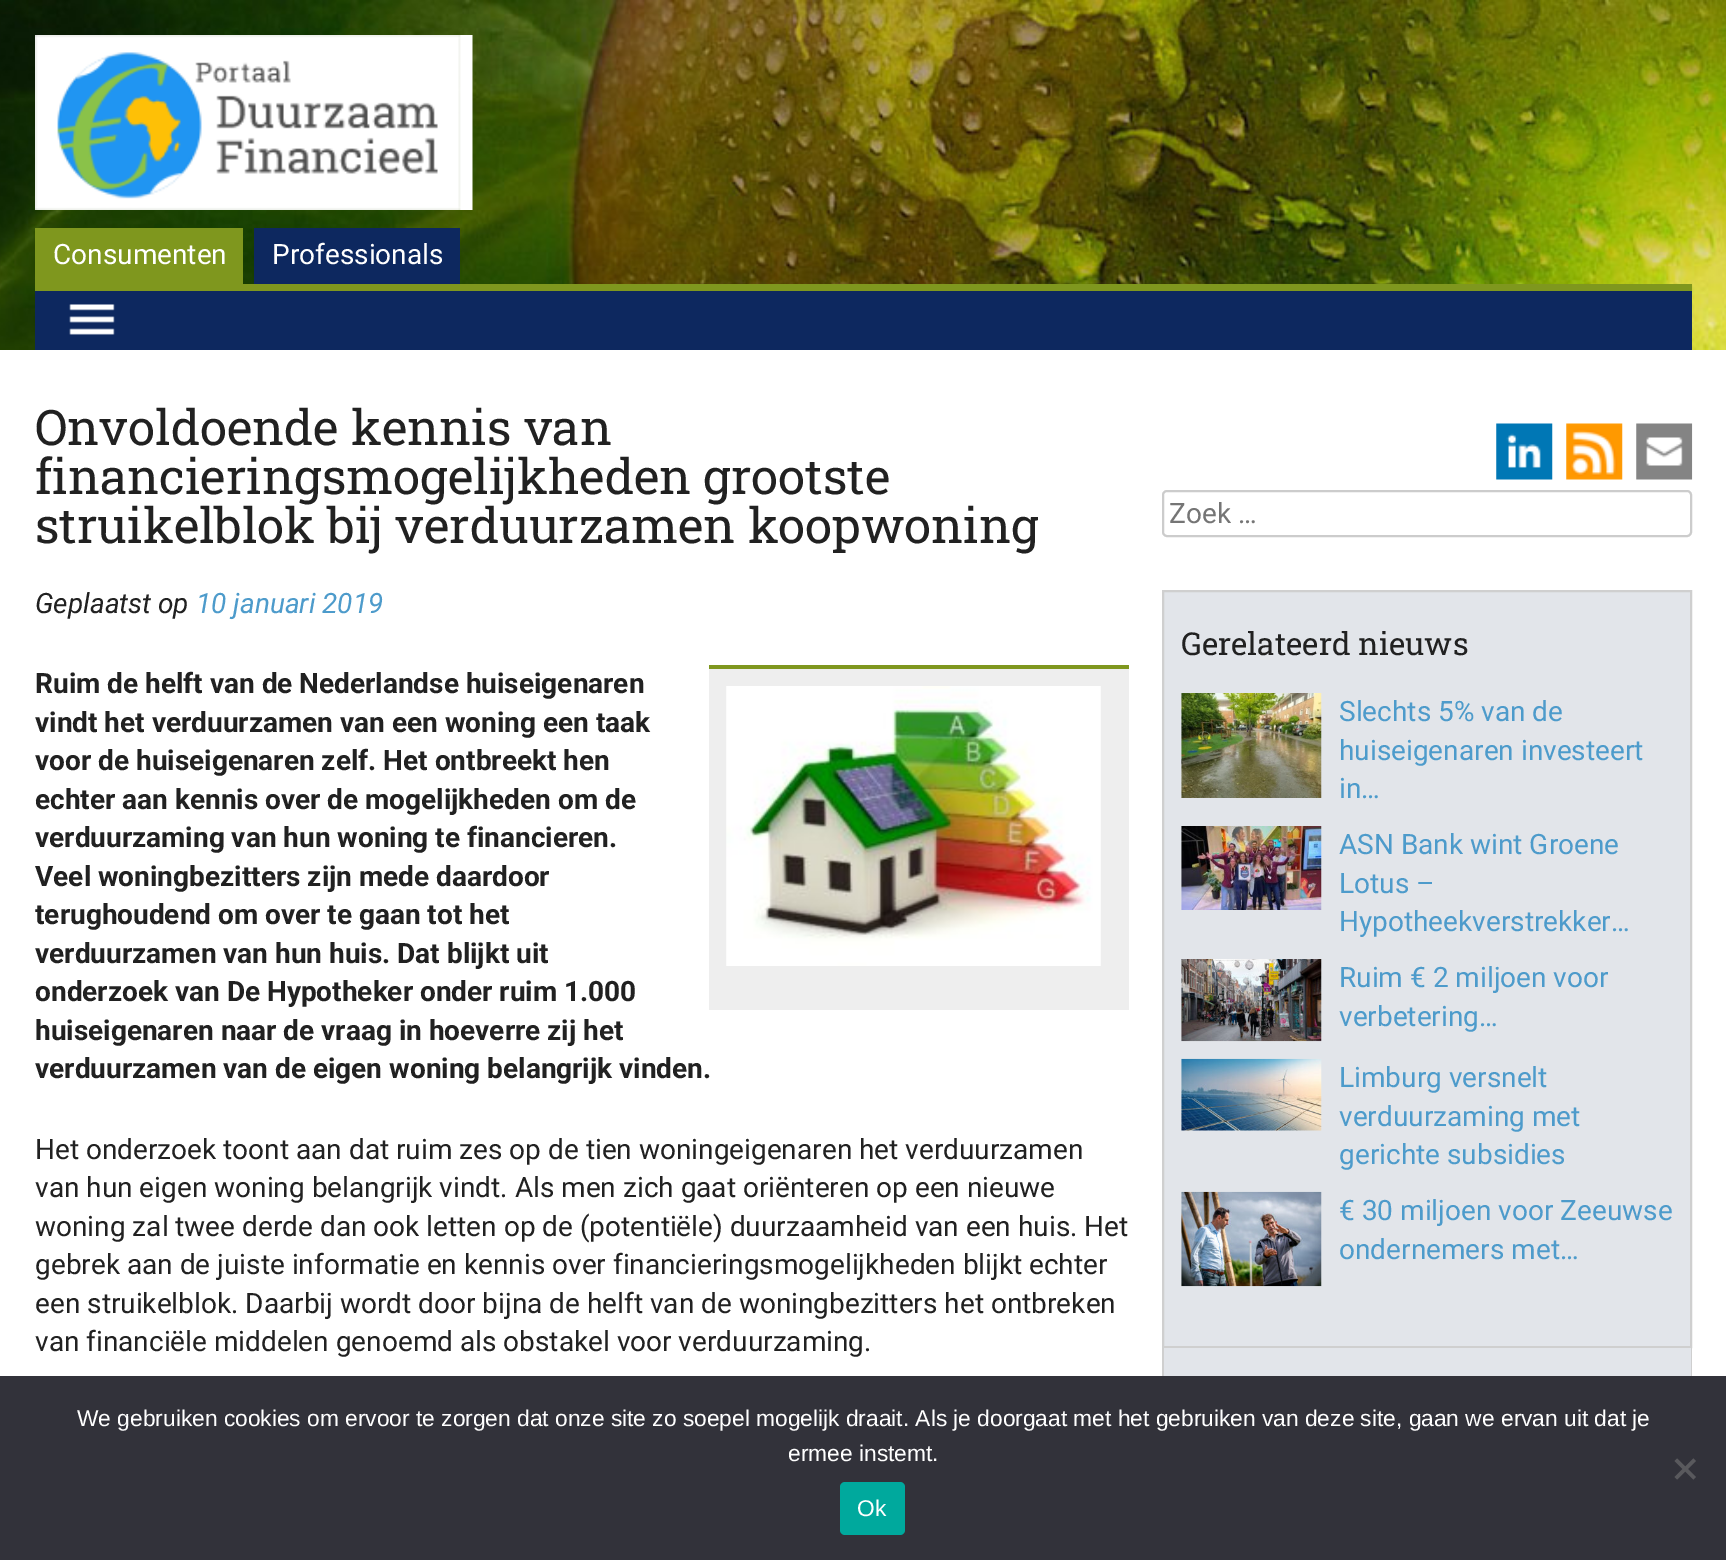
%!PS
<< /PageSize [1726 1560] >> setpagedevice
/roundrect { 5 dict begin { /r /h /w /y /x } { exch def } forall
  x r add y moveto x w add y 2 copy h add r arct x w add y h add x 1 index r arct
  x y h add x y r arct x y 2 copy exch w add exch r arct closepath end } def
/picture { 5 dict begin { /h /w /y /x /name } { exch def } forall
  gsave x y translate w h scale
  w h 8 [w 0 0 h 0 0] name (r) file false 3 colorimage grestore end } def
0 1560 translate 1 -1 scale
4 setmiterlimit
1 setgray
0 0 1726 1560 rectfill
(img1.rgb) 0 0 1726 350 picture
(img2.rgb) 35 35 438 175 picture
0.498 0.592 0.118 setrgbcolor
35 284 1657 7 rectfill
35 228 208 56 rectfill
/Roboto-Regular [28 0 0 -28 0 0] selectfont
1 setgray
53 264 moveto (Consumenten) show
0.051 0.157 0.373 setrgbcolor
254 228 206 56 rectfill
1 setgray
272 264 moveto (Professionals) show
0.051 0.157 0.373 setrgbcolor
35 291 1657 59 rectfill
(img3.rgb) 69 304 46 31 picture
/RobotoSlab-Regular [49 0 0 -49 0 0] selectfont
0.129 setgray
35 445 moveto (Onvoldoende kennis van) show
35 494 moveto (financieringsmogelijkheden grootste) show
35 543 moveto (struikelblok bij verduurzamen koopwoning) show
/Roboto-Italic [28 0 0 -28 0 0] selectfont
35 613 moveto (Geplaatst op) show
0.302 0.608 0.796 setrgbcolor
196 613 moveto (10 januari 2019) show
/Roboto-Bold [28 0 0 -28 0 0] selectfont
0.129 setgray
35 693 moveto (Ruim de helft van de Nederlandse huiseigenaren) show
35 732 moveto (vindt het verduurzamen van een woning een taak) show
35 770 moveto (voor de huiseigenaren zelf. Het ontbreekt hen) show
35 809 moveto (echter aan kennis over de mogelijkheden om de) show
35 847 moveto (verduurzaming van hun woning te financieren.) show
35 886 moveto (Veel woningbezitters zijn mede daardoor) show
35 924 moveto (terughoudend om over te gaan tot het) show
35 963 moveto (verduurzamen van hun huis. Dat blijkt uit) show
35 1001 moveto (onderzoek van De Hypotheker onder ruim 1.000) show
35 1040 moveto (huiseigenaren naar de vraag in hoeverre zij het) show
35 1078 moveto (verduurzamen van de eigen woning belangrijk vinden.) show
0.933 setgray
709 669 420 341 rectfill
0.498 0.592 0.118 setrgbcolor
709 665 420 4 rectfill
(img4.rgb) 726 686 375 280 picture
/Roboto-Regular [28 0 0 -28 0 0] selectfont
0.129 setgray
35 1159 moveto (Het onderzoek toont aan dat ruim zes op de tien woningeigenaren het verduurzamen) show
35 1197 moveto (van hun eigen woning belangrijk vindt. Als men zich gaat oriënteren op een nieuwe) show
35 1236 moveto (woning zal twee derde dan ook letten op de \(potentiële\) duurzaamheid van een huis. Het) show
35 1274 moveto (gebrek aan de juiste informatie en kennis over financieringsmogelijkheden blijkt echter) show
35 1313 moveto (een struikelblok. Daarbij wordt door bijna de helft van de woningbezitters het ontbreken) show
35 1351 moveto (van financiële middelen genoemd als obstakel voor verduurzaming.) show
(img5.rgb) 1496 423 57 57 picture
(img6.rgb) 1566 423 57 57 picture
(img7.rgb) 1636 423 57 57 picture
0.8 setgray
2 setlinewidth
1163 491 528 45 4 roundrect stroke
0.459 setgray
1169 523 moveto (Zoek …) show
0.886 0.898 0.918 setrgbcolor
newpath 1163 591 moveto 1691 591 lineto 1691 1347 lineto 1163 1347 lineto closepath gsave fill grestore
0.812 setgray
stroke
/RobotoSlab-Regular [31.5 0 0 -31.5 0 0] selectfont
0.129 setgray
1181 655 moveto (Gerelateerd nieuws) show
(img8.rgb) 1181 693 141 105 picture
/Roboto-Regular [28 0 0 -28 0 0] selectfont
0.302 0.608 0.796 setrgbcolor
1339 721 moveto (Slechts 5% van de) show
1339 760 moveto (huiseigenaren investeert) show
1339 798 moveto (in…) show
(img9.rgb) 1181 826 141 84 picture
1339 854 moveto (ASN Bank wint Groene) show
1339 893 moveto (Lotus –) show
1339 931 moveto (Hypotheekverstrekker…) show
(img10.rgb) 1181 959 141 83 picture
1339 987 moveto (Ruim € 2 miljoen voor) show
1339 1026 moveto (verbetering…) show
(img11.rgb) 1181 1058 141 73 picture
1339 1087 moveto (Limburg versnelt) show
1339 1126 moveto (verduurzaming met) show
1339 1164 moveto (gerichte subsidies) show
(img12.rgb) 1181 1191 141 96 picture
1339 1220 moveto (€ 30 miljoen voor Zeeuwse) show
1339 1259 moveto (ondernemers met…) show
0.886 0.898 0.918 setrgbcolor
1164 1348 527 28 rectfill
0.812 setgray
1691 1348 1 28 rectfill
1162 1348 2 28 rectfill
0.196 0.196 0.227 setrgbcolor
0 1376 1726 184 rectfill
/LiberationSans-Regular [22.75 0 0 -22.75 0 0] selectfont
1 setgray
77 1426 moveto (We gebruiken cookies om ervoor te zorgen dat onze site zo soepel mogelijk draait. Als je doorgaat met het gebruiken van deze site, gaan we ervan uit dat je) show
788 1461 moveto (ermee instemt.) show
0.349 0.349 0.365 setrgbcolor
newpath 1693.5 1458.5 moveto 1696 1461 lineto 1677 1479.5 lineto 1674.5 1477 lineto closepath fill
newpath 1674.5 1461 moveto 1677 1458.5 lineto 1696 1477 lineto 1693.5 1479.5 lineto closepath fill
0 0.663 0.616 setrgbcolor
840 1482 65 53 5 roundrect fill
1 setgray
857 1516 moveto (Ok) show
showpage
